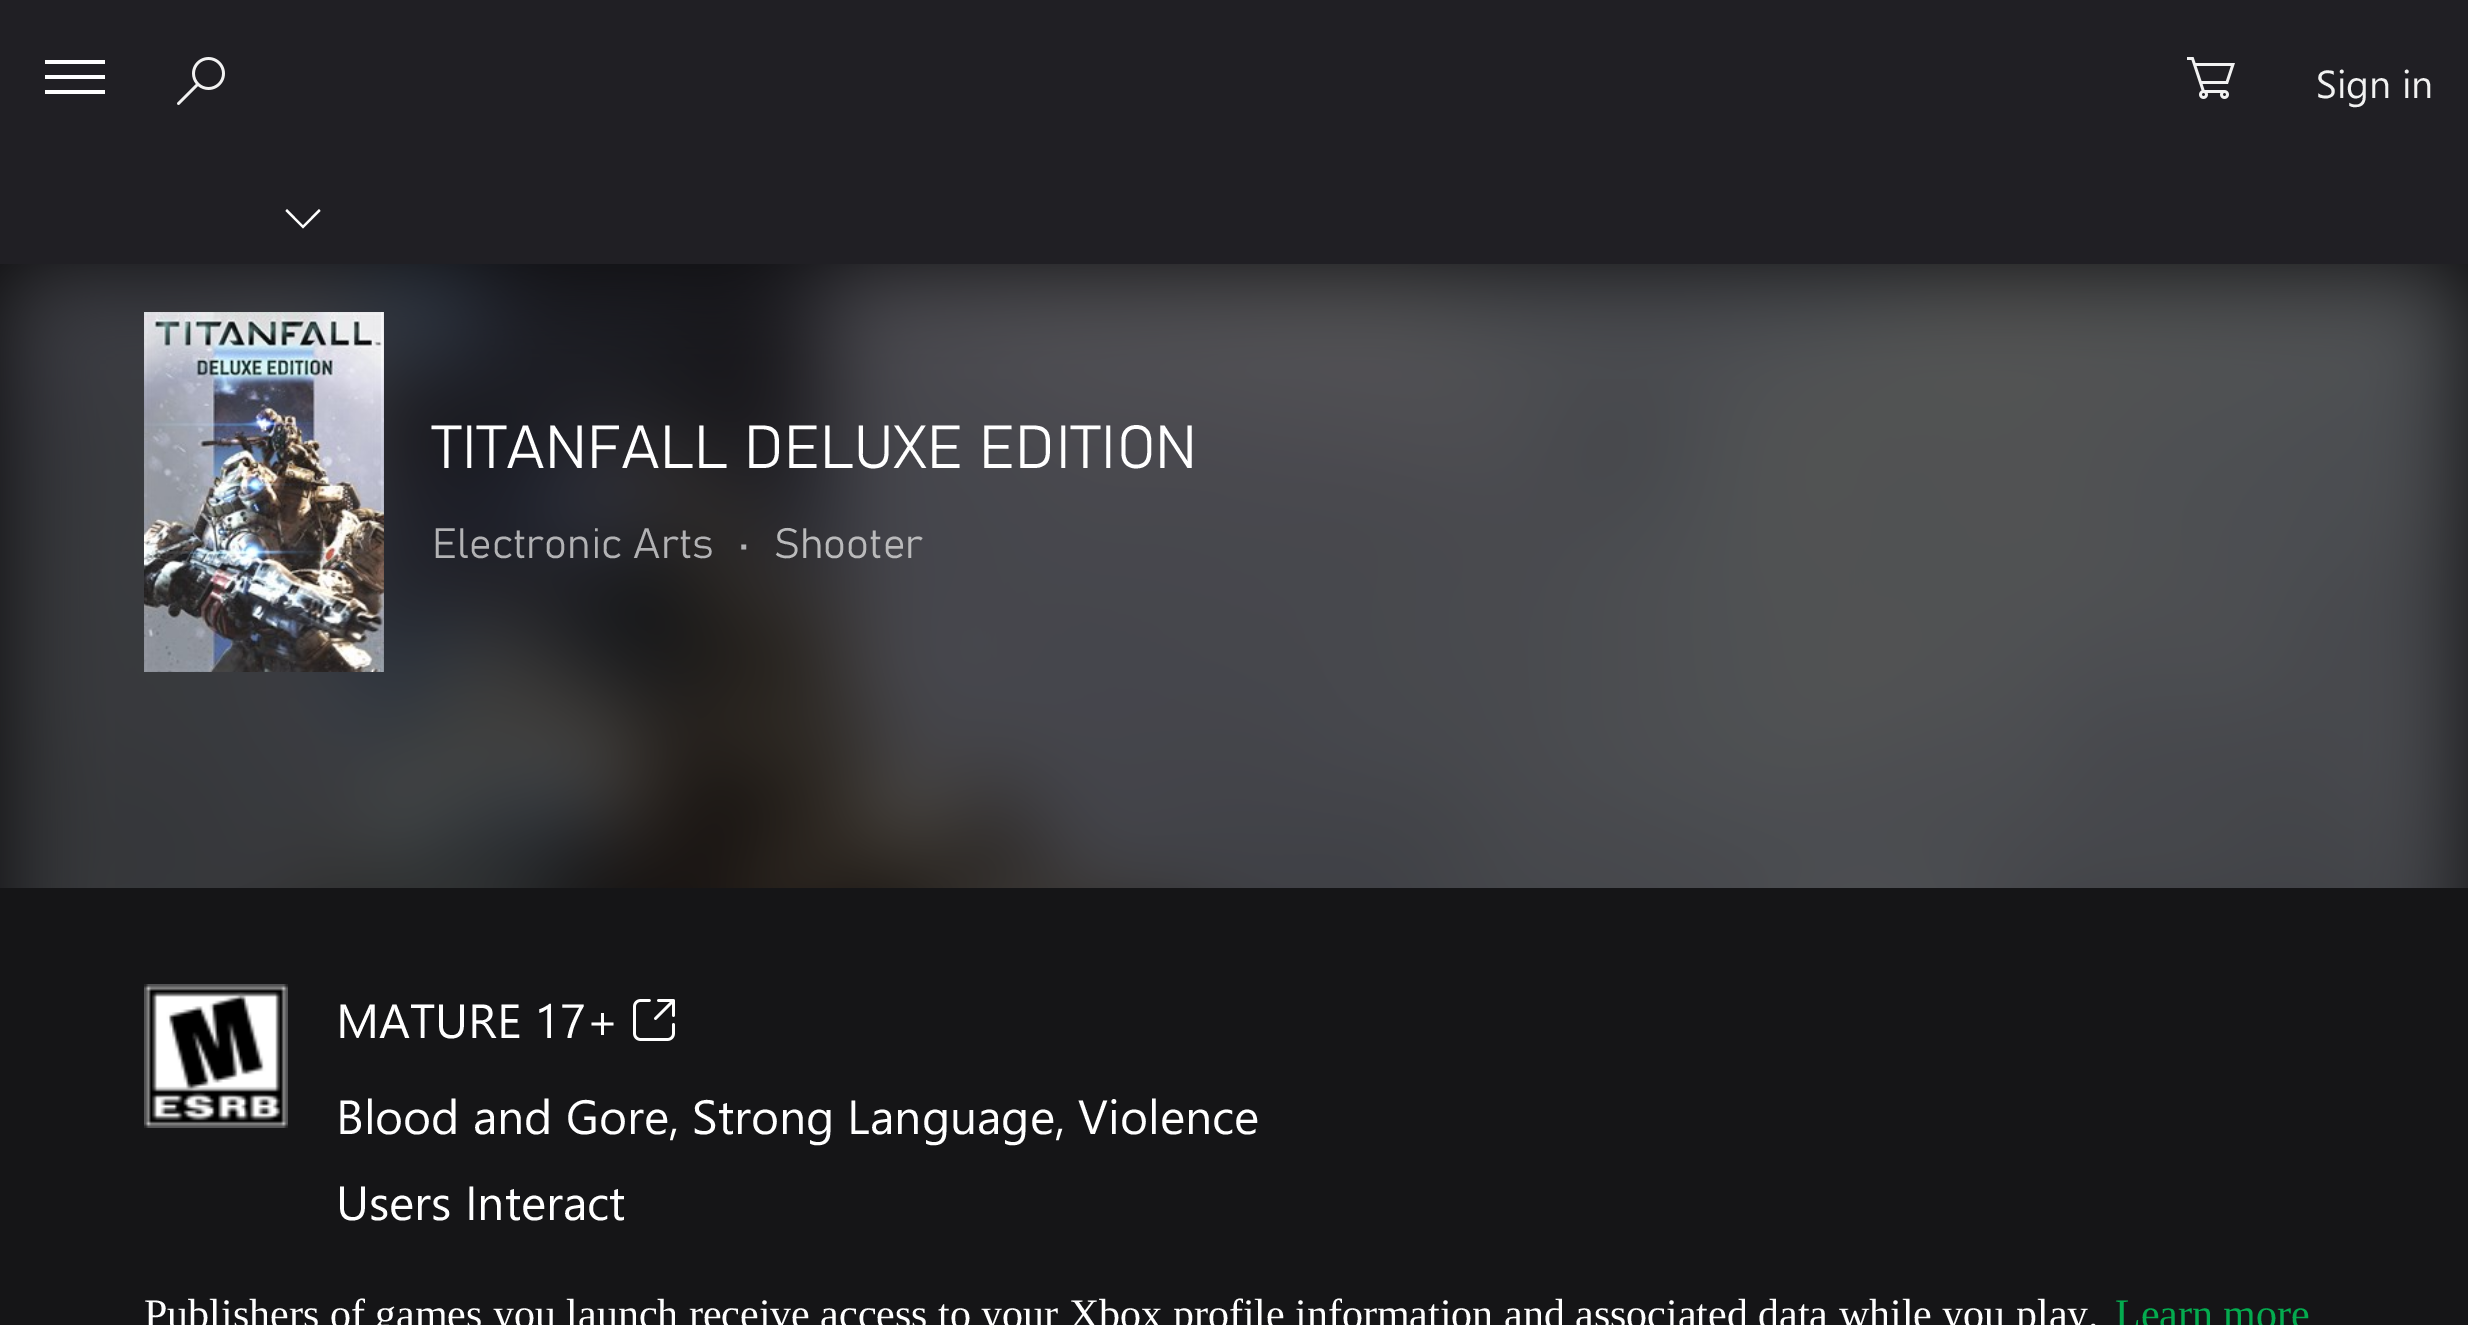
%!PS
<< /PageSize [2468 1325] >> setpagedevice
/picture { 5 dict begin { /h /w /y /x /name } { exch def } forall
  gsave x y translate w h scale
  w h 8 [w 0 0 h 0 0] name (r) file false 3 colorimage grestore end } def
0 1325 translate 1 -1 scale
4 setmiterlimit
0.125 0.122 0.141 setrgbcolor
0 0 2468 1325 rectfill
0.047 0.043 0.051 setrgbcolor
0 264 2468 624 rectfill
1 setgray
newpath 105 64 moveto 45 64 lineto 45 60 lineto 105 60 lineto closepath 105 94 moveto 45 94 lineto 45 90 lineto 105 90 lineto closepath 105 79 moveto 45 79 lineto 45 75 lineto 105 75 lineto closepath fill
(img1.rgb) 177 57 48 48 picture
(img2.rgb) 2187 57 48 42 picture
/SegoeUI-Regular [39 0 0 -39 0 0] selectfont
0.949 setgray
2316 98 moveto (Sign in) show
1 setgray
newpath 319 209 moveto 320.5 211 lineto 303 228.5 lineto 285.5 211 lineto 287 209 lineto 303 225.5 lineto closepath fill
(img3.rgb) 0 264 2468 624 picture
(img4.rgb) 144 312 240 360 picture
/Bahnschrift-Light [60 0 0 -60 0 0] selectfont
432 468 moveto (TITANFALL DELUXE EDITION) show
/Bahnschrift-Light [42 0 0 -42 0 0] selectfont
0.698 0.698 0.706 setrgbcolor
432 558 moveto (Electronic Arts) show
738 558 moveto (•) show
0.729 0.729 0.733 setrgbcolor
774 558 moveto (Shooter) show
0.082 0.082 0.09 setrgbcolor
0 888 2468 437 rectfill
(img5.rgb) 144 984 144 144 picture
/SegoeUI-Regular [48 0 0 -48 0 0] selectfont
1 setgray
336 1038 moveto (MATURE 17+) show
(img6.rgb) 633 999 42 42 picture
336 1134 moveto (Blood and Gore, Strong Language, Violence) show
336 1220 moveto (Users Interact) show
/LiberationSerif-Regular [42 0 0 -42 0 0] selectfont
144 1328 moveto (Publishers of games you launch receive access to your Xbox profile information and associated data while you play.) show
0.016 0.671 0.31 setrgbcolor
2115 1328 moveto (Learn more) show
showpage
